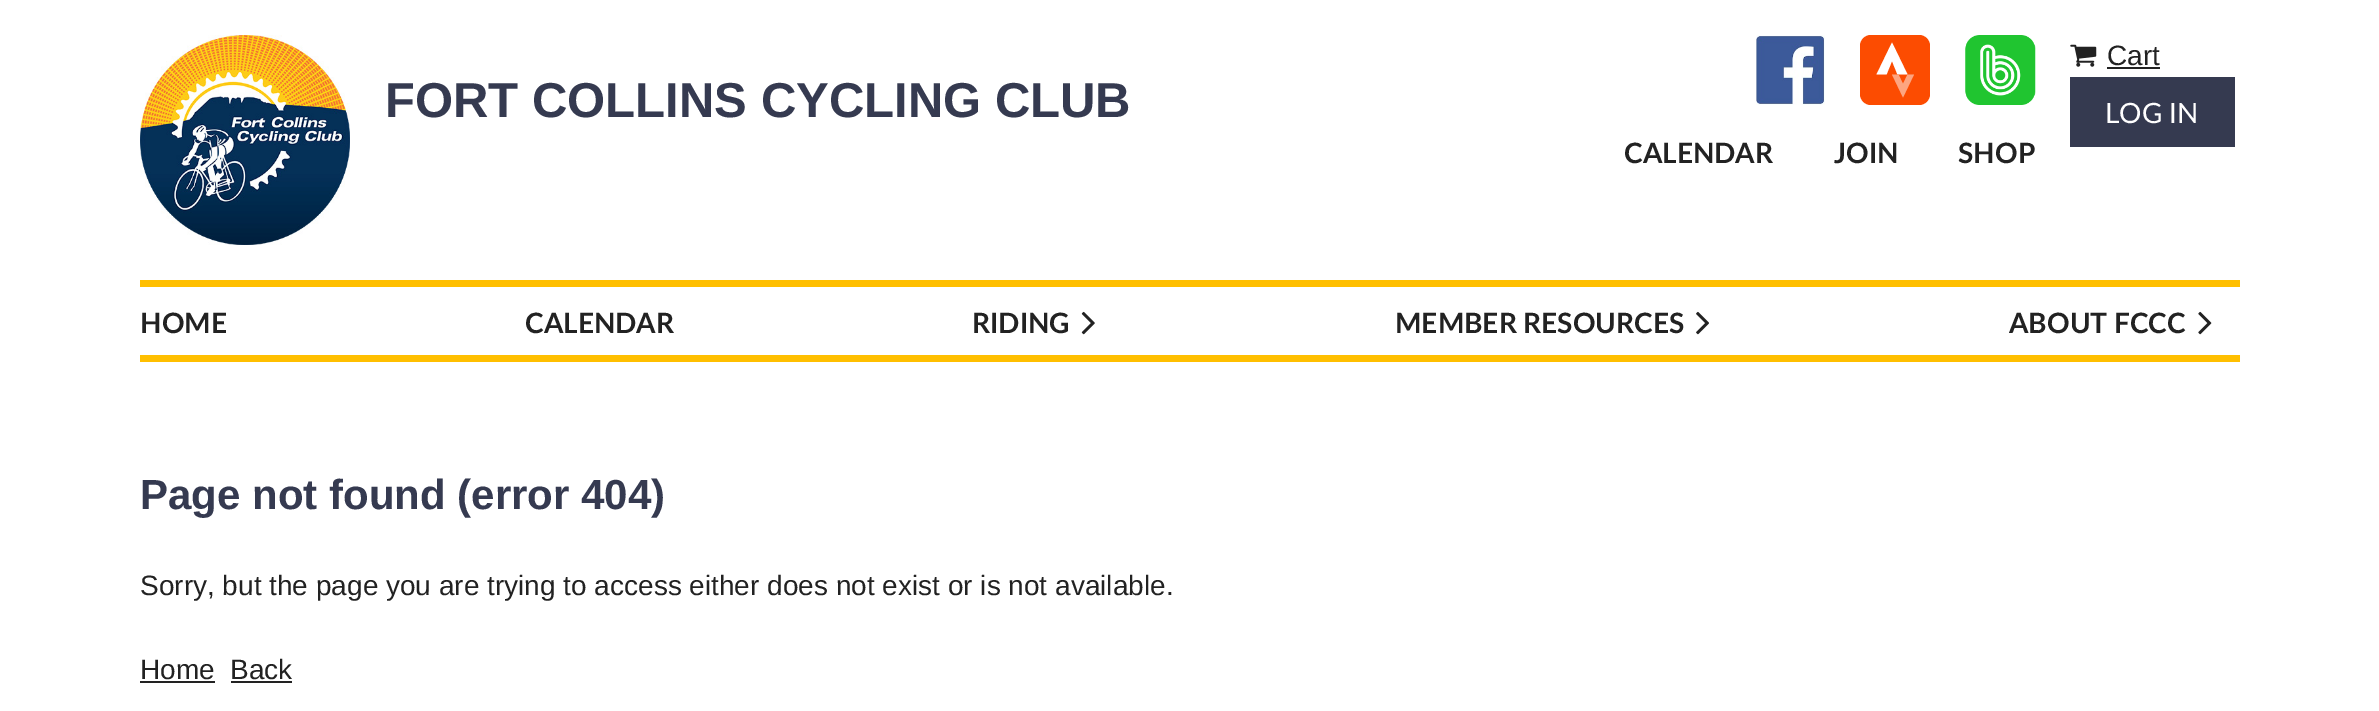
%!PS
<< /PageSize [2379 711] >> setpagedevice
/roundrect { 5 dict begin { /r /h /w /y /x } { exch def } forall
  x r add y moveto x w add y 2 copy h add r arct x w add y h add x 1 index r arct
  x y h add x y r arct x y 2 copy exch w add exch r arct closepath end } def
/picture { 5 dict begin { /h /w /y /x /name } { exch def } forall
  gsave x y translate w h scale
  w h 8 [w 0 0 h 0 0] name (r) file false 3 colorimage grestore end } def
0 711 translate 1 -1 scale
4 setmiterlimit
1 setgray
0 0 2379 711 rectfill
(img1.rgb) 140 35 210 210 picture
/LiberationSans-Bold [49 0 0 -49 0 0] selectfont
0.208 0.227 0.314 setrgbcolor
385 117 moveto (FORT COLLINS CYCLING CLUB) show
(img2.rgb) 2070 44 27 23 picture
/LiberationSans-Regular [28 0 0 -28 0 0] selectfont
0.133 setgray
2107 65 moveto (Cart) show
2107 67 53 2 rectfill
0.208 0.227 0.314 setrgbcolor
2070 77 165 70 rectfill
/Lato-Regular [28 0 0 -28 0 0] selectfont
1 setgray
2105 123 moveto (LOG IN) show
(img3.rgb) 1756 35 69 70 picture
0.988 0.298 0.004 setrgbcolor
1860 35 70 70 11 roundrect fill
1 setgray
newpath 1876.5 74.5 moveto 1892 42.5 lineto 1907.5 74.5 lineto 1897.5 74.5 lineto 1892 61 lineto 1886.5 74.5 lineto closepath fill
0.992 0.647 0.502 setrgbcolor
newpath 1898.5 74.5 moveto 1903 84 lineto 1907.5 74.5 lineto 1914 74.5 lineto 1903 97.5 lineto 1892 74.5 lineto closepath fill
(img4.rgb) 1965 35 71 70 picture
/Lato-Bold [28 0 0 -28 0 0] selectfont
0.133 setgray
1624 163 moveto (CALENDAR) show
1834 163 moveto (JOIN) show
1958 163 moveto (SHOP) show
1 0.749 0 setrgbcolor
140 280 2100 7 rectfill
140 355 2100 7 rectfill
0.133 setgray
140 333 moveto (HOME) show
525 333 moveto (CALENDAR) show
972 333 moveto (RIDING) show
(img5.rgb) 1081 311 14 24 picture
1395 333 moveto (MEMBER RESOURCES) show
(img6.rgb) 1696 311 13 24 picture
2009 333 moveto (ABOUT FCCC) show
(img7.rgb) 2198 311 14 24 picture
/LiberationSans-Bold [42 0 0 -42 0 0] selectfont
0.208 0.227 0.314 setrgbcolor
140 509 moveto (Page not found \(error 404\)) show
/LiberationSans-Regular [28 0 0 -28 0 0] selectfont
0.133 setgray
140 595 moveto (Sorry, but the page you are trying to access either does not exist or is not available.) show
140 679 moveto (Home) show
140 681 75 2 rectfill
230 679 moveto (Back) show
231 681 61 2 rectfill
showpage
